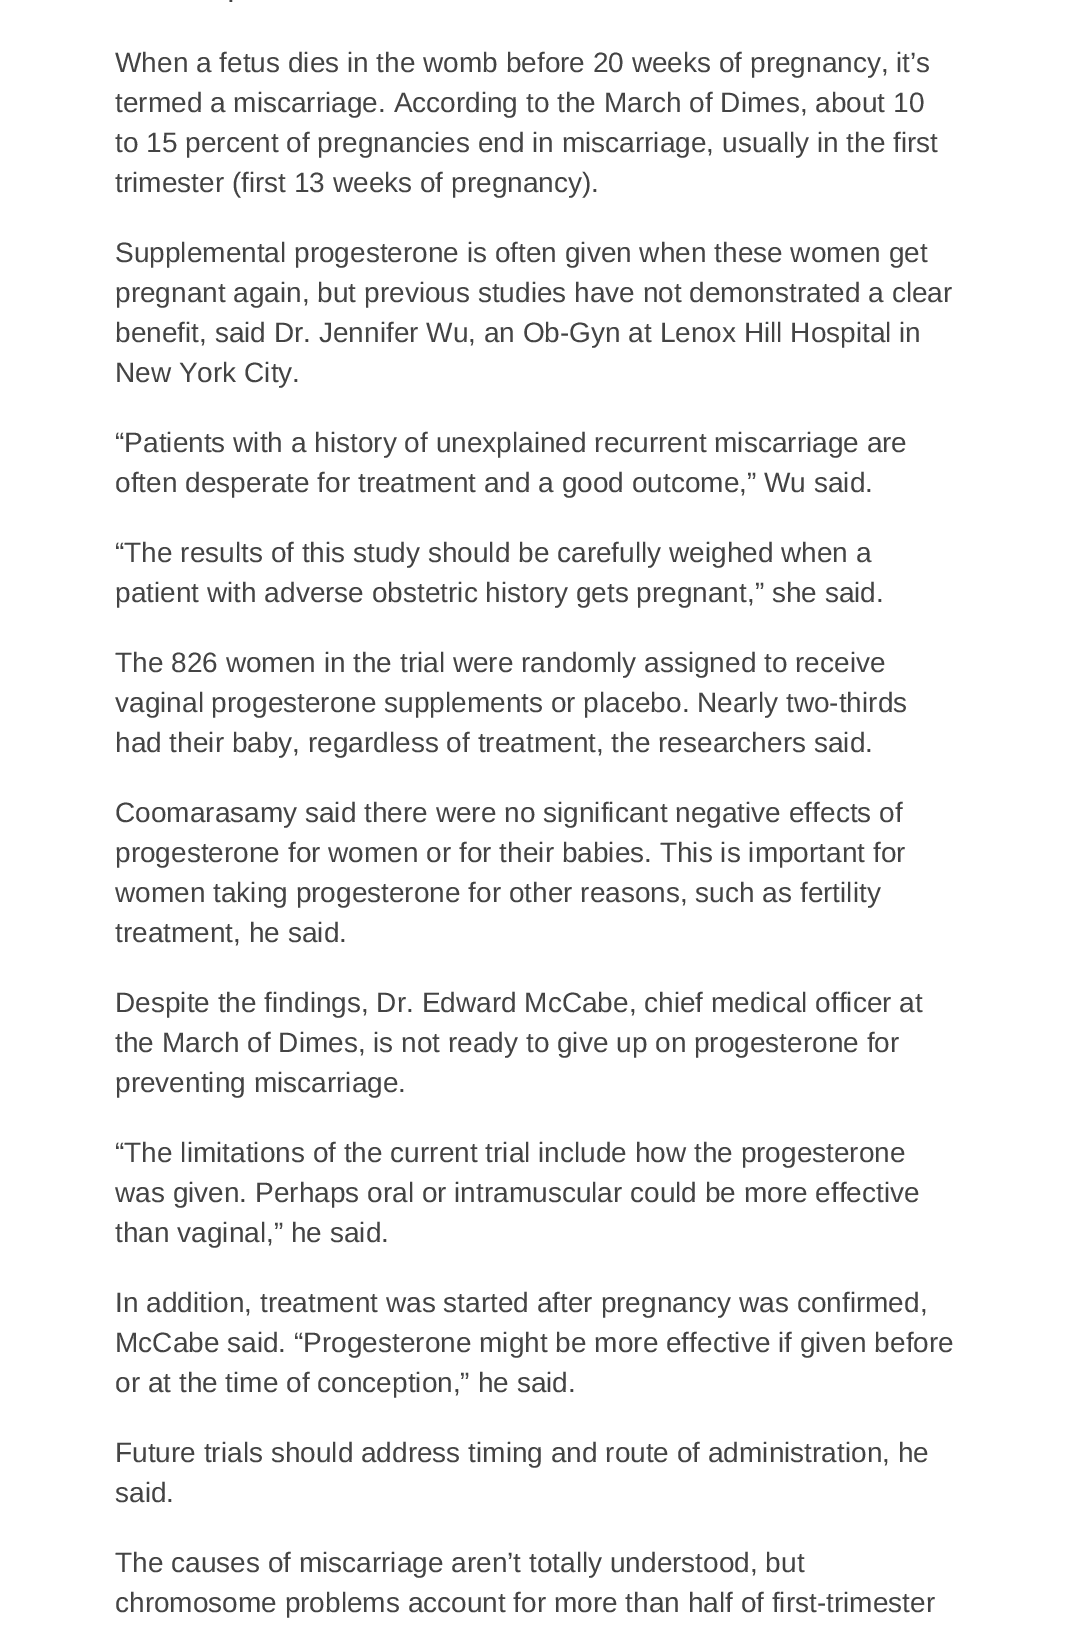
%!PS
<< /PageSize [1070 1642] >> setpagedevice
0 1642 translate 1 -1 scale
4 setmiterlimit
1 setgray
0 0 1070 1642 rectfill
/LiberationSans-Regular [28 0 0 -28 0 0] selectfont
0.267 setgray
227 2 moveto (.) show
115 72 moveto (When a fetus dies in the womb before 20 weeks of pregnancy, it’s) show
115 112 moveto (termed a miscarriage. According to the March of Dimes, about 10) show
115 152 moveto (to 15 percent of pregnancies end in miscarriage, usually in the first) show
115 192 moveto (trimester \(first 13 weeks of pregnancy\).) show
115 262 moveto (Supplemental progesterone is often given when these women get) show
115 302 moveto (pregnant again, but previous studies have not demonstrated a clear) show
115 342 moveto (benefit, said Dr. Jennifer Wu, an Ob-Gyn at Lenox Hill Hospital in) show
115 382 moveto (New York City.) show
115 452 moveto (“Patients with a history of unexplained recurrent miscarriage are) show
115 492 moveto (often desperate for treatment and a good outcome,” Wu said.) show
115 562 moveto (“The results of this study should be carefully weighed when a) show
115 602 moveto (patient with adverse obstetric history gets pregnant,” she said.) show
115 672 moveto (The 826 women in the trial were randomly assigned to receive) show
115 712 moveto (vaginal progesterone supplements or placebo. Nearly two-thirds) show
115 752 moveto (had their baby, regardless of treatment, the researchers said.) show
115 822 moveto (Coomarasamy said there were no significant negative effects of) show
115 862 moveto (progesterone for women or for their babies. This is important for) show
115 902 moveto (women taking progesterone for other reasons, such as fertility) show
115 942 moveto (treatment, he said.) show
115 1012 moveto (Despite the findings, Dr. Edward McCabe, chief medical officer at) show
115 1052 moveto (the March of Dimes, is not ready to give up on progesterone for) show
115 1092 moveto (preventing miscarriage.) show
115 1162 moveto (“The limitations of the current trial include how the progesterone) show
115 1202 moveto (was given. Perhaps oral or intramuscular could be more effective) show
115 1242 moveto (than vaginal,” he said.) show
115 1312 moveto (In addition, treatment was started after pregnancy was confirmed,) show
115 1352 moveto (McCabe said. “Progesterone might be more effective if given before) show
115 1392 moveto (or at the time of conception,” he said.) show
115 1462 moveto (Future trials should address timing and route of administration, he) show
115 1502 moveto (said.) show
115 1572 moveto (The causes of miscarriage aren’t totally understood, but) show
115 1612 moveto (chromosome problems account for more than half of first-trimester) show
showpage
